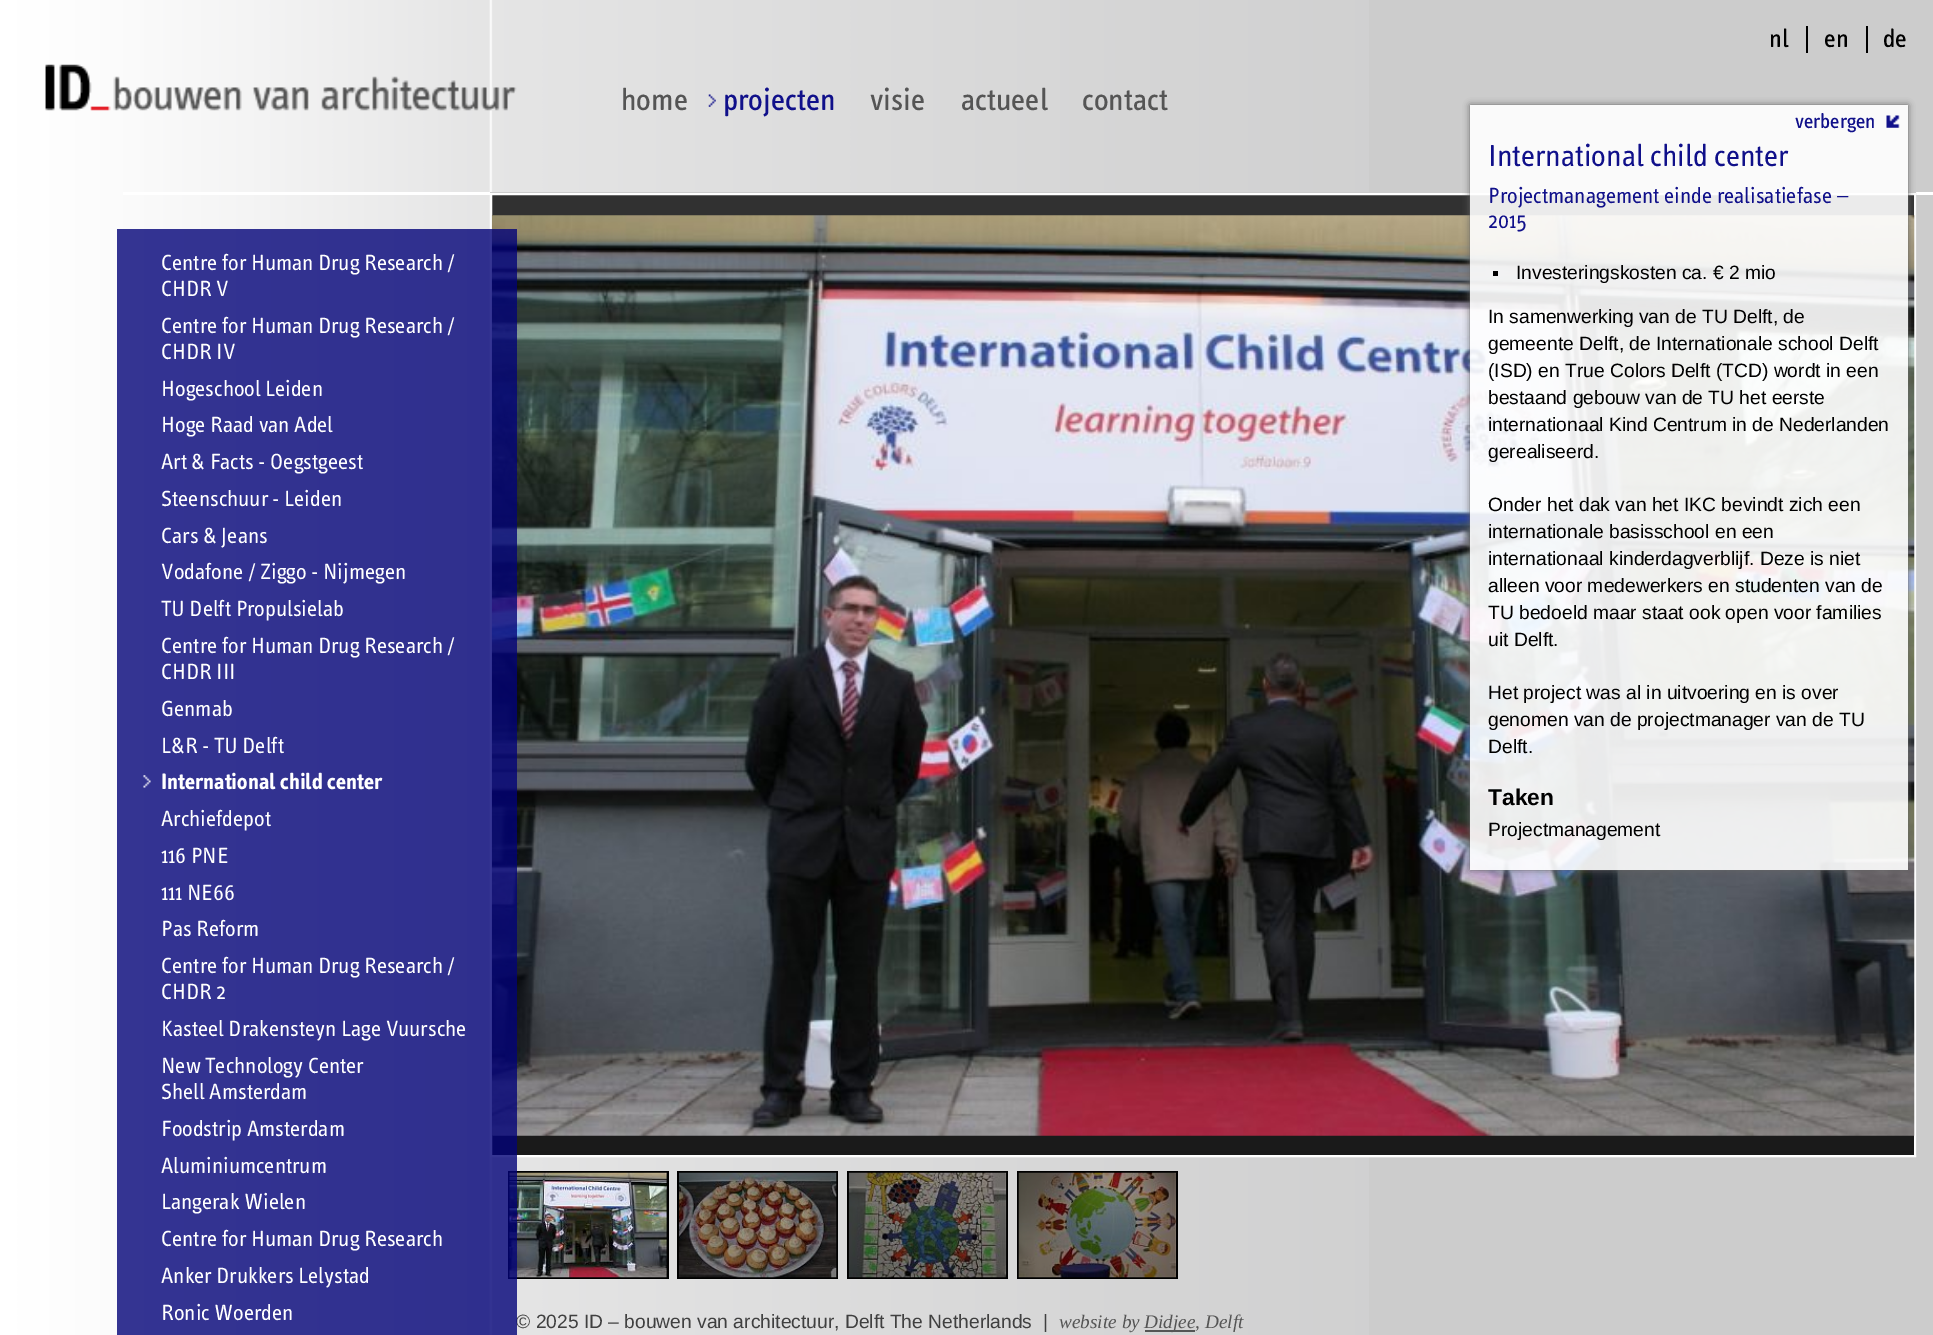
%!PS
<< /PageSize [1933 1335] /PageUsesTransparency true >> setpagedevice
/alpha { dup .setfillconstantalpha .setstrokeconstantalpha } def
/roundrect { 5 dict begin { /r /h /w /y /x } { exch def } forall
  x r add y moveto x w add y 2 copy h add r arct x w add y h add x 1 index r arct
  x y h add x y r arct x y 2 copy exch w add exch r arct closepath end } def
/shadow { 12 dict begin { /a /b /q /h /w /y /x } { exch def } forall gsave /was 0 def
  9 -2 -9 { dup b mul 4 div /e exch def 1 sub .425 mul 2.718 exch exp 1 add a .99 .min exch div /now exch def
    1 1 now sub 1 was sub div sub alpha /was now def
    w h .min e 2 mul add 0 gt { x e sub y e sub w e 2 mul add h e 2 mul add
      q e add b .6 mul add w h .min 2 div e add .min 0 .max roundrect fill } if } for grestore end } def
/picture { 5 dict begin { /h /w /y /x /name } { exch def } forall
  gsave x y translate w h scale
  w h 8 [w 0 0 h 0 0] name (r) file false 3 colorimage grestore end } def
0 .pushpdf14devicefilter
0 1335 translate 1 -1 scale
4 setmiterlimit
0.8 setgray
0 0 1933 1335 rectfill
(img1.rgb) 0 0 1369 1335 picture
/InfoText-Regular [26 0 0 -26 0 0] selectfont
0 setgray
1769 47 moveto (nl) show
1806 26 2 27 rectfill
1824 47 moveto (en) show
1866 26 2 27 rectfill
1883 47 moveto (de) show
1 setgray
123 192 1810 3 rectfill
(img2.rgb) 45 64 472 47 picture
/InfoText-Regular [31.5 0 0 -31.5 0 0] selectfont
0.333 setgray
621 110 moveto (home) show
(img3.rgb) 708 94 8 13 picture
0.063 0.063 0.541 setrgbcolor
723 110 moveto (projecten) show
0.333 setgray
870 110 moveto (visie) show
961 110 moveto (actueel) show
1082 110 moveto (contact) show
(img6.rgb) 490 192 1427 963 picture
1 setgray
2 setlinewidth
491 194 1424 962 rectstroke
(img7.rgb) 491 215 1424 921 picture
0 setgray
508 1171 161 108 rectfill
(img8.rgb) 509 1172 158 106 picture
/LiberationSans-Regular [19.25 0 0 -19.25 0 0] selectfont
0.251 setgray
516 1328 moveto (© 2025 ID – bouwen van architectuur, Delft The Netherlands  |) show
0.8 alpha
0.008 0.008 0.471 setrgbcolor
117 229 400 1106 rectfill
/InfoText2-Regular [22.75 0 0 -22.75 0 0] selectfont
1 alpha
1 setgray
161 270 moveto (Centre for Human Drug Research /) show
161 296 moveto (CHDR V) show
161 333 moveto (Centre for Human Drug Research /) show
161 359 moveto (CHDR IV) show
161 396 moveto (Hogeschool Leiden) show
161 432 moveto (Hoge Raad van Adel) show
161 469 moveto (Art & Facts - Oegstgeest) show
161 506 moveto (Steenschuur - Leiden) show
161 543 moveto (Cars & Jeans) show
161 579 moveto (Vodafone / Ziggo - Nijmegen) show
161 616 moveto (TU Delft Propulsielab) show
161 653 moveto (Centre for Human Drug Research /) show
161 679 moveto (CHDR III) show
161 716 moveto (Genmab) show
161 753 moveto (L&R - TU Delft) show
(img4.rgb) 143 775 8 13 picture
/InfoText-Bold [22.75 0 0 -22.75 0 0] selectfont
161 789 moveto (International child center) show
/InfoText2-Regular [22.75 0 0 -22.75 0 0] selectfont
161 826 moveto (Archiefdepot) show
161 863 moveto (116 PNE) show
161 900 moveto (111 NE66) show
161 936 moveto (Pas Reform) show
161 973 moveto (Centre for Human Drug Research /) show
161 999 moveto (CHDR 2) show
161 1036 moveto (Kasteel Drakensteyn Lage Vuursche) show
161 1073 moveto (New Technology Center) show
161 1099 moveto (Shell Amsterdam) show
161 1136 moveto (Foodstrip Amsterdam) show
161 1173 moveto (Aluminiumcentrum) show
161 1209 moveto (Langerak Wielen) show
161 1246 moveto (Centre for Human Drug Research) show
161 1283 moveto (Anker Drukkers Lelystad) show
161 1320 moveto (Ronic Woerden) show
gsave
newpath 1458 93 moveto 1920 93 lineto 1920 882 lineto 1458 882 lineto closepath 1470 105 moveto 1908 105 lineto 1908 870 lineto 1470 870 lineto closepath eoclip newpath
0.4 setgray
1470 105 438 765 0 3.5 1 shadow
grestore
0.9 alpha
1470 105 438 765 rectfill
1 alpha
(img5.rgb) 1886 115 14 13 picture
/InfoText-Regular [21 0 0 -21 0 0] selectfont
0.063 0.063 0.541 setrgbcolor
1795 128 moveto (verbergen) show
/InfoText2-Regular [31.5 0 0 -31.5 0 0] selectfont
1488 166 moveto (International child center) show
/InfoText2-Regular [22.75 0 0 -22.75 0 0] selectfont
1488 203 moveto (Projectmanagement einde realisatiefase –) show
1488 228 moveto (2015) show
0 setgray
1493 271 5 5 rectfill
/LiberationSans-Regular [19.25 0 0 -19.25 0 0] selectfont
1516 279 moveto (Investeringskosten ca. € 2 mio) show
1488 323 moveto (In samenwerking van de TU Delft, de) show
1488 350 moveto (gemeente Delft, de Internationale school Delft) show
1488 377 moveto (\(ISD\) en True Colors Delft \(TCD\) wordt in een) show
1488 404 moveto (bestaand gebouw van de TU het eerste) show
1488 431 moveto (internationaal Kind Centrum in de Nederlanden) show
1488 458 moveto (gerealiseerd.) show
1488 511 moveto (Onder het dak van het IKC bevindt zich een) show
1488 538 moveto (internationale basisschool en een) show
1488 565 moveto (internationaal kinderdagverblijf. Deze is niet) show
1488 592 moveto (alleen voor medewerkers en studenten van de) show
1488 619 moveto (TU bedoeld maar staat ook open voor families) show
1488 646 moveto (uit Delft.) show
1488 699 moveto (Het project was al in uitvoering en is over) show
1488 726 moveto (genomen van de projectmanager van de TU) show
1488 753 moveto (Delft.) show
/LiberationSans-Bold [22.75 0 0 -22.75 0 0] selectfont
1488 805 moveto (Taken) show
/LiberationSans-Regular [19.25 0 0 -19.25 0 0] selectfont
1488 836 moveto (Projectmanagement) show
677 1171 161 108 rectfill
(img9.rgb) 679 1172 158 106 picture
847 1171 161 108 rectfill
(img10.rgb) 848 1172 159 106 picture
1017 1171 161 108 rectfill
(img11.rgb) 1018 1172 158 106 picture
/LiberationSerif-Italic [19.25 0 0 -19.25 0 0] selectfont
0.333 setgray
1059 1328 moveto (website by) show
1145 1330 50 2 rectfill
1144 1328 moveto (Didjee, Delft) show
.poppdf14devicefilter showpage
